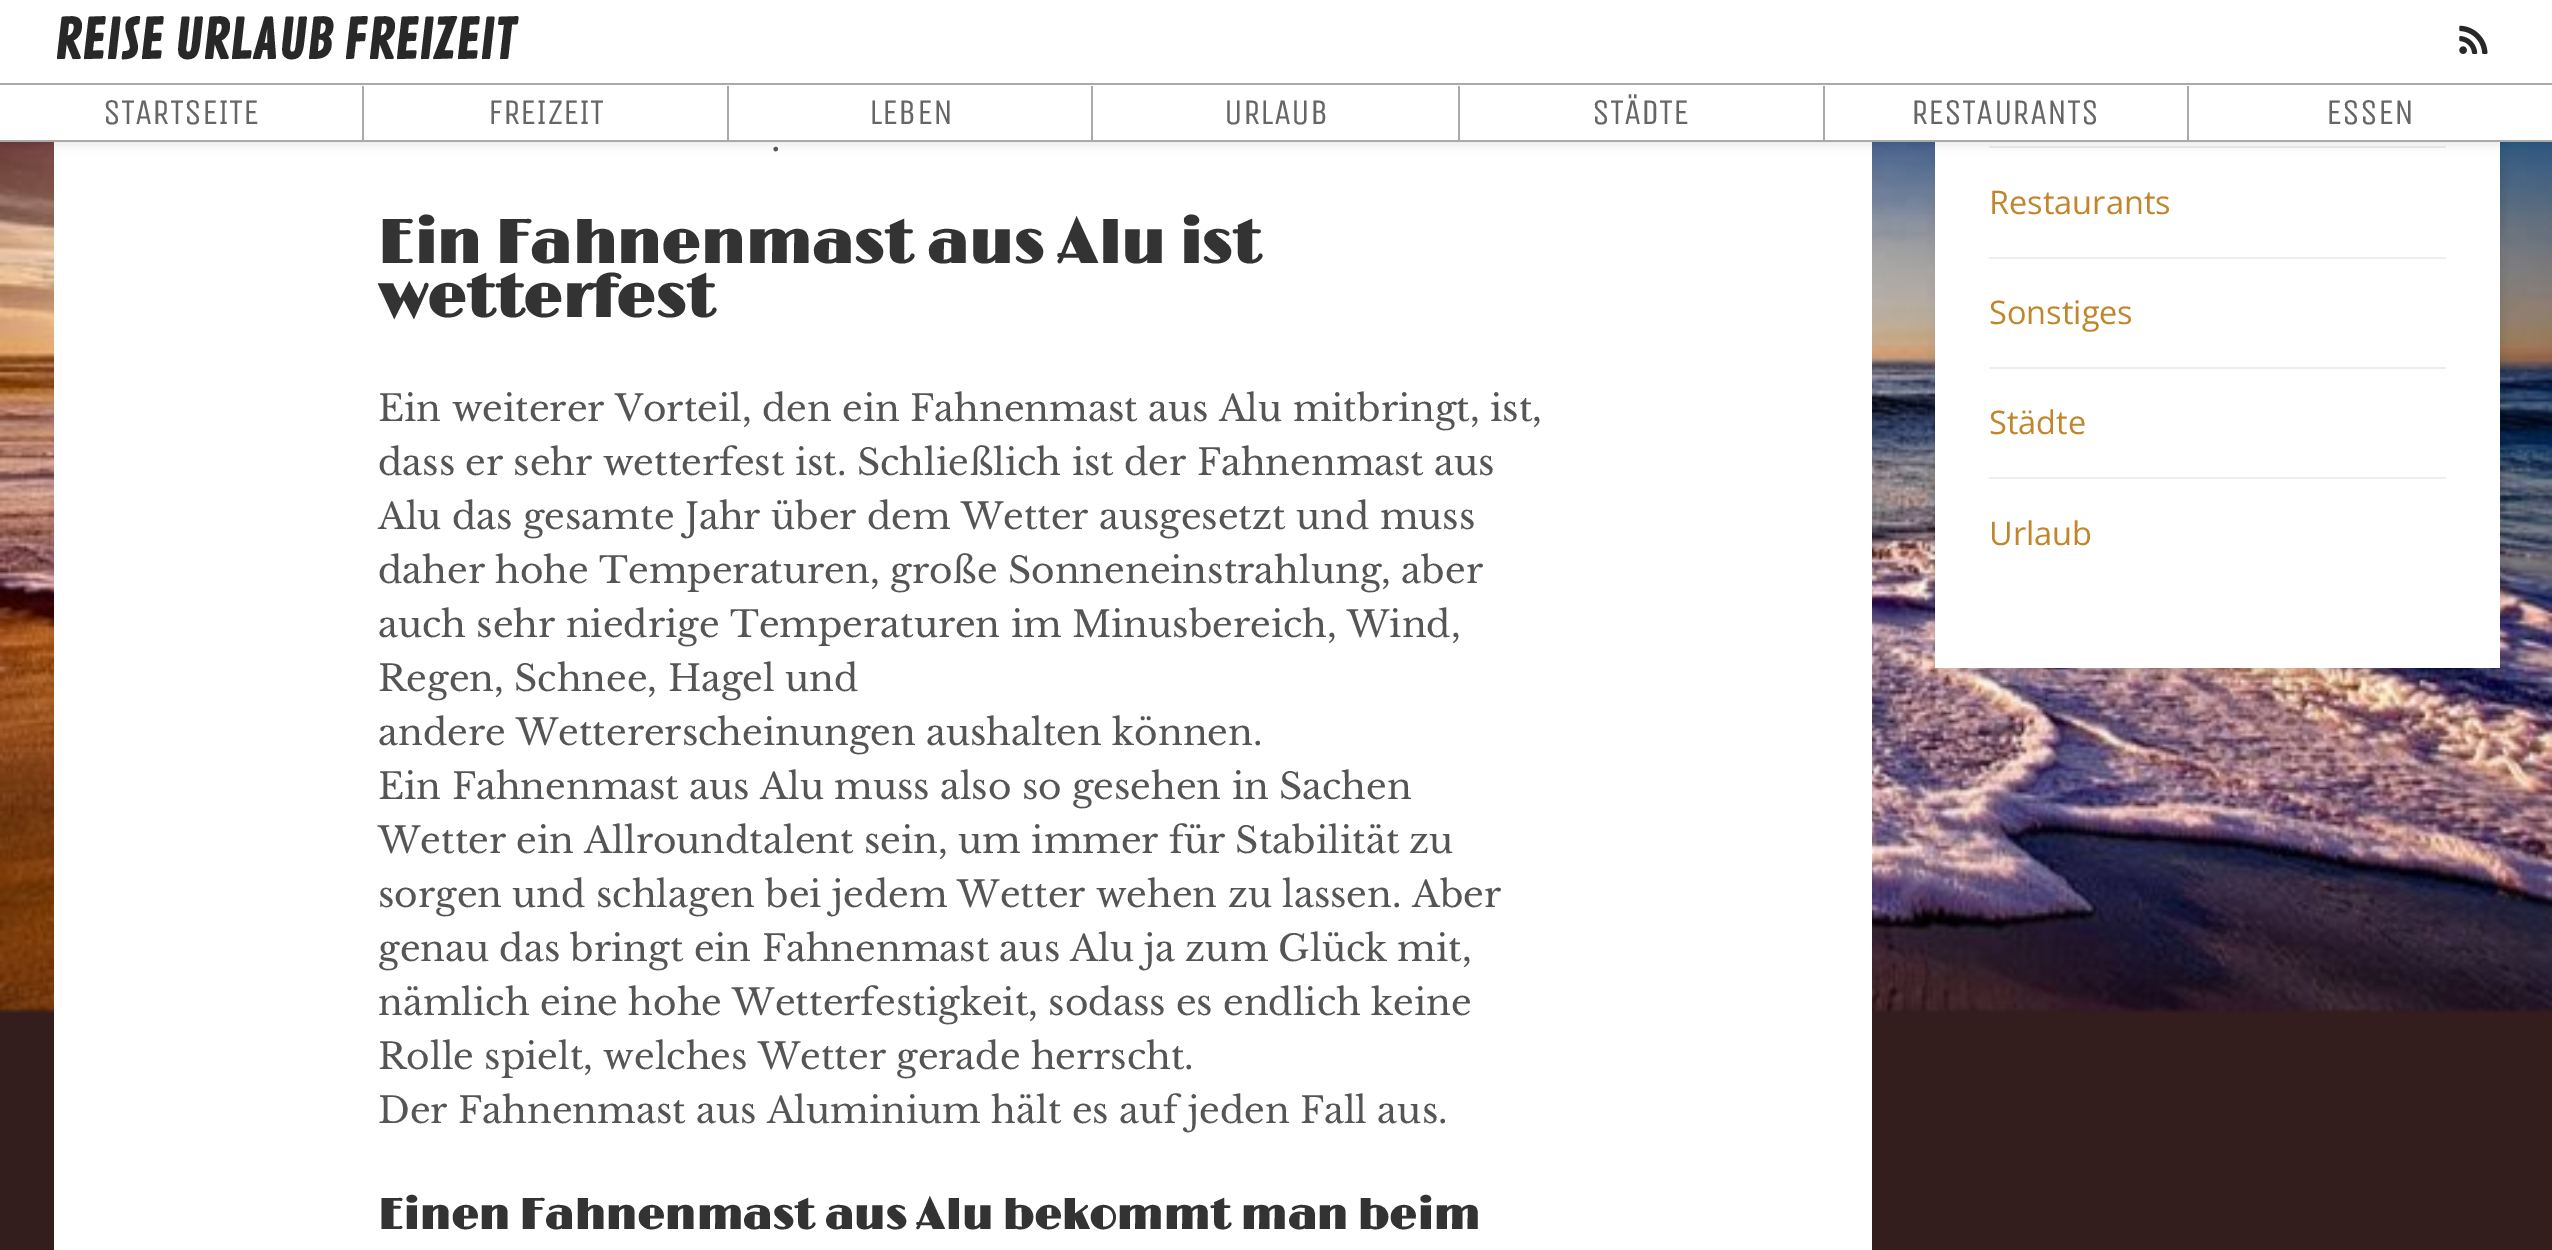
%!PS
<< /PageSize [2552 1250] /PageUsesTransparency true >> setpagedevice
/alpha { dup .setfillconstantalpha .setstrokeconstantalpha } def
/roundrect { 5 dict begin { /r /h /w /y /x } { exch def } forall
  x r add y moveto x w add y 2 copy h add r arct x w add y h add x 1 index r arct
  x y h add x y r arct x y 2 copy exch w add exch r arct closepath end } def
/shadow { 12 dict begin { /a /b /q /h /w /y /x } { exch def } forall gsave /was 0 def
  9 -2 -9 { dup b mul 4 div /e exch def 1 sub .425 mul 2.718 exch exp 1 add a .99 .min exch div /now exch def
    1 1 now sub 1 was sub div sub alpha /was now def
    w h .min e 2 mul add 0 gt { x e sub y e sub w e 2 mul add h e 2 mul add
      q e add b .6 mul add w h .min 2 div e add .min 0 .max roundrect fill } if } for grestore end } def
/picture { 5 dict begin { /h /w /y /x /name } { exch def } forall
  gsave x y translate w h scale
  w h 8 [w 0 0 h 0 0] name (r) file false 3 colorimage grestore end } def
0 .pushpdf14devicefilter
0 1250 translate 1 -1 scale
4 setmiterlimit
0.2 0.114 0.114 setrgbcolor
0 0 2552 1250 rectfill
(img1.rgb) 0 142 2552 871 picture
1 setgray
54 142 1818 1108 rectfill
0 setgray
1940 -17 564 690 0 5.5 0.1 shadow
1 setgray
1935 142 565 526 rectfill
0.933 setgray
1989 146 457 2 rectfill
0 setgray
5 5 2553 139 0 5.5 0.1 shadow
1 setgray
0 0 2552 86 rectfill
0.667 setgray
0 83 2552 2 rectfill
/ContrailOne-Bold [54 0 0 -54 0 0] selectfont
0.157 setgray
54 59 moveto (REISE URLAUB FREIZEIT) show
(img2.rgb) 2459 25 29 29 picture
1 setgray
0 86 727 54 rectfill
0.667 setgray
362 86 2 56 rectfill
0 140 365 2 rectfill
/UnicaOne-Regular [36 0 0 -36 0 0] selectfont
0.4 setgray
103 124 moveto (STARTSEITE) show
0.667 setgray
727 86 2 56 rectfill
365 140 364 2 rectfill
0.4 setgray
488 124 moveto (FREIZEIT) show
1 setgray
729 86 729 54 rectfill
0.667 setgray
1091 86 2 56 rectfill
729 140 365 2 rectfill
0.4 setgray
869 124 moveto (LEBEN) show
0.667 setgray
1458 86 2 56 rectfill
1094 140 366 2 rectfill
0.4 setgray
1224 124 moveto (URLAUB) show
1 setgray
1460 86 363 54 rectfill
0.667 setgray
1823 86 2 56 rectfill
1460 140 365 2 rectfill
0.4 setgray
1592 124 moveto (STÄDTE) show
1 setgray
1825 86 362 54 rectfill
0.667 setgray
2187 86 2 56 rectfill
1825 140 727 2 rectfill
0.4 setgray
1911 124 moveto (RESTAURANTS) show
1 setgray
2189 86 363 54 rectfill
0.4 setgray
2326 124 moveto (ESSEN) show
/LibreBaskerville-Regular [36 0 0 -36 0 0] selectfont
0.333 setgray
771 151 moveto (.) show
/Limelight-Bold [61.25 0 0 -61.25 0 0] selectfont
0.2 setgray
378 263 moveto (Ein Fahnenmast aus Alu ist) show
378 317 moveto (wetterfest) show
/LibreBaskerville-Regular [36 0 0 -36 0 0] selectfont
0.333 setgray
378 421 moveto (Ein weiterer Vorteil, den ein Fahnenmast aus Alu mitbringt, ist,) show
378 475 moveto (dass er sehr wetterfest ist. Schließlich ist der Fahnenmast aus) show
378 529 moveto (Alu das gesamte Jahr über dem Wetter ausgesetzt und muss) show
378 583 moveto (daher hohe Temperaturen, große Sonneneinstrahlung, aber) show
378 637 moveto (auch sehr niedrige Temperaturen im Minusbereich, Wind,) show
378 691 moveto (Regen, Schnee, Hagel und) show
378 745 moveto (andere Wettererscheinungen aushalten können.) show
378 799 moveto (Ein Fahnenmast aus Alu muss also so gesehen in Sachen) show
378 853 moveto (Wetter ein Allroundtalent sein, um immer für Stabilität zu) show
378 907 moveto (sorgen und schlagen bei jedem Wetter wehen zu lassen. Aber) show
378 961 moveto (genau das bringt ein Fahnenmast aus Alu ja zum Glück mit,) show
378 1015 moveto (nämlich eine hohe Wetterfestigkeit, sodass es endlich keine) show
378 1069 moveto (Rolle spielt, welches Wetter gerade herrscht.) show
378 1123 moveto (Der Fahnenmast aus Aluminium hält es auf jeden Fall aus.) show
/Limelight-Bold [43.2 0 0 -43.2 0 0] selectfont
0.2 setgray
378 1229 moveto (Einen Fahnenmast aus Alu bekommt man beim) show
0.933 setgray
1989 257 457 2 rectfill
/OpenSans-Regular [32.5 0 0 -32.5 0 0] selectfont
0.757 0.525 0.173 setrgbcolor
1989 214 moveto (Restaurants) show
0.933 setgray
1989 367 457 2 rectfill
0.757 0.525 0.173 setrgbcolor
1989 324 moveto (Sonstiges) show
0.933 setgray
1989 477 457 2 rectfill
0.757 0.525 0.173 setrgbcolor
1989 434 moveto (Städte) show
1989 545 moveto (Urlaub) show
.poppdf14devicefilter showpage
